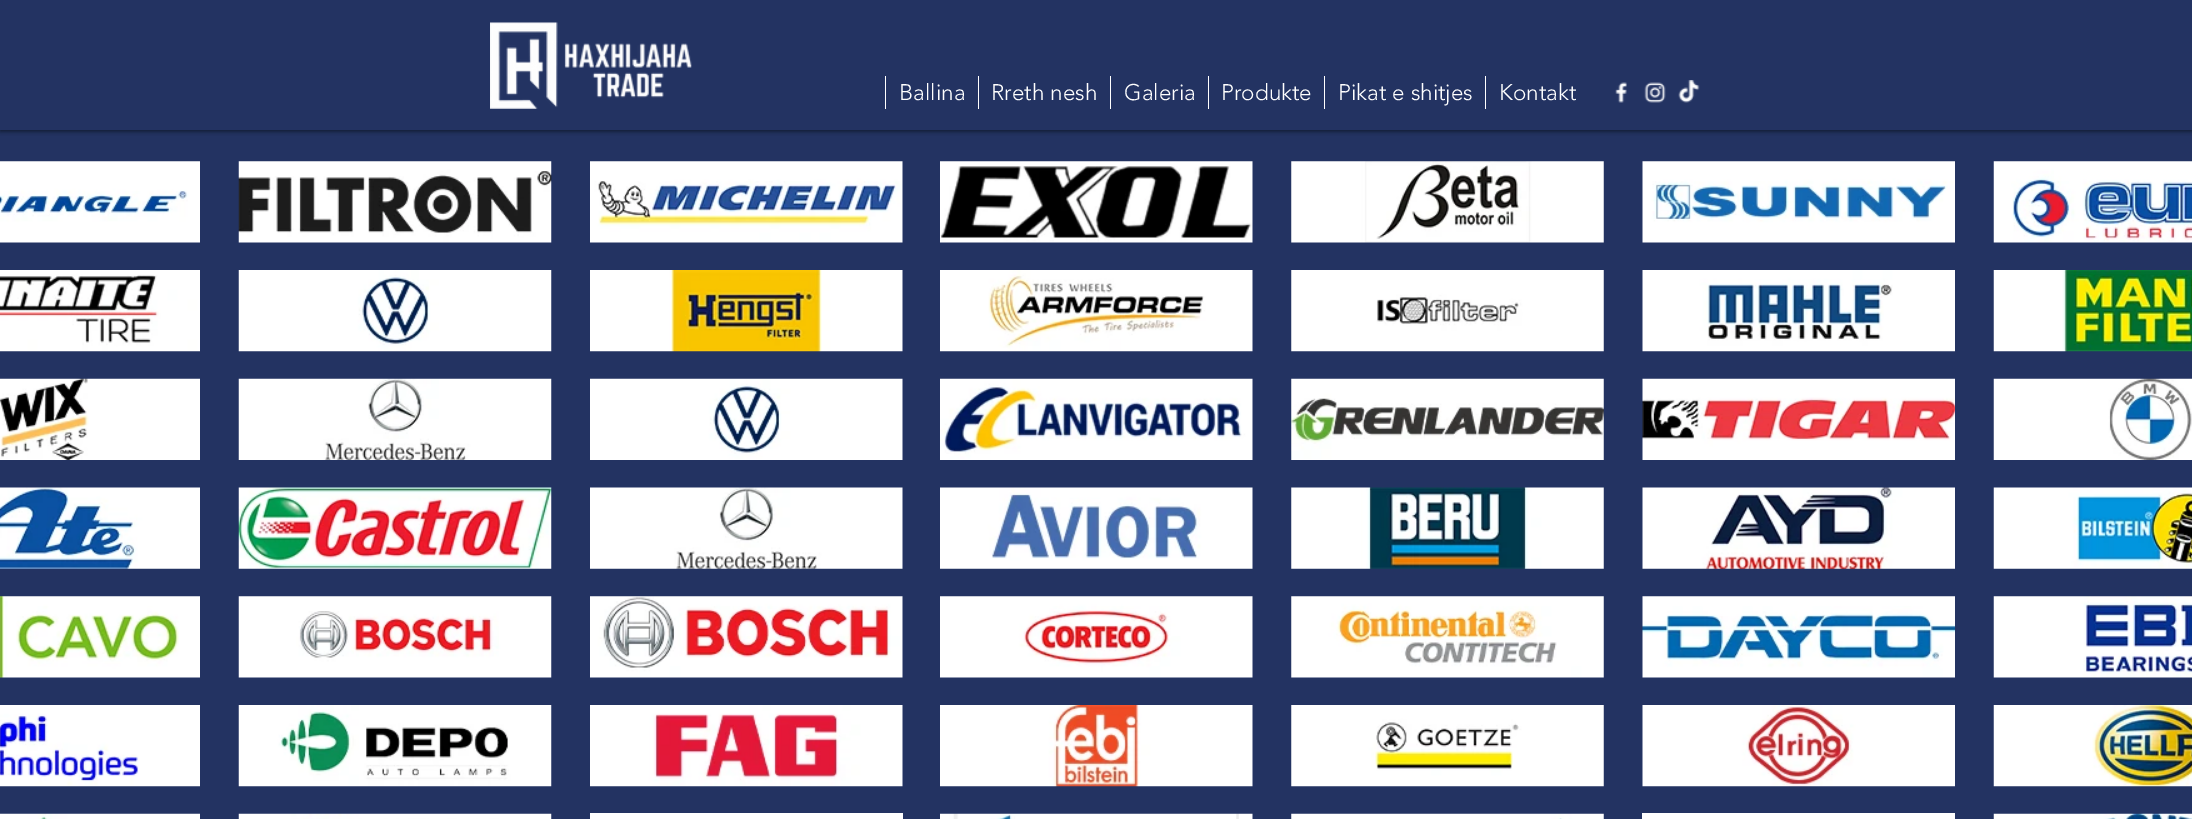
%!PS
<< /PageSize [2192 819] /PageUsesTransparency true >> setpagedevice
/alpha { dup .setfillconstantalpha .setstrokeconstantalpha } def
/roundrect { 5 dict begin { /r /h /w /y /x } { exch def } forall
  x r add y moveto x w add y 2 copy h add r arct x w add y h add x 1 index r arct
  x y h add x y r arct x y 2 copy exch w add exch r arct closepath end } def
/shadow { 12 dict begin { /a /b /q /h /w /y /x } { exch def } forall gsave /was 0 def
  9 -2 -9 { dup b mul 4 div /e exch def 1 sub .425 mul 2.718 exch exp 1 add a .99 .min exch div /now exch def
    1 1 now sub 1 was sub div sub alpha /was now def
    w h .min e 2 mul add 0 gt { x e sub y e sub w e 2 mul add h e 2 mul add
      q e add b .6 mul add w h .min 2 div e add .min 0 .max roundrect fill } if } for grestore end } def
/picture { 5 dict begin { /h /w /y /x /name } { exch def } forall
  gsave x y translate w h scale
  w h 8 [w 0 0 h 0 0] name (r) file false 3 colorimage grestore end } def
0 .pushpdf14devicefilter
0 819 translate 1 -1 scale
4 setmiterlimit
0.137 0.2 0.384 setrgbcolor
0 0 2192 819 rectfill
gsave
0 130 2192 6 rectclip
0 setgray
0 1 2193 130 0 2.5 0.6 shadow
grestore
(img1.rgb) 490 22 202 87 picture
1 setgray
885 76 1 33 rectfill
/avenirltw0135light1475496-Light [22.5 0 0 -22.5 0 0] selectfont
899 100 moveto (Ballina) show
978 76 1 33 rectfill
991 100 moveto (Rreth nesh) show
1110 76 1 33 rectfill
1124 100 moveto (Galeria) show
1208 76 1 33 rectfill
1221 100 moveto (Produkte) show
1324 76 1 33 rectfill
1338 100 moveto (Pikat e shitjes) show
1485 76 1 33 rectfill
1499 100 moveto (Kontakt) show
(img2.rgb) 1615 82 12 21 picture
(img3.rgb) 1644 82 22 21 picture
(img4.rgb) 1678 80 22 23 picture
(img5.rgb) 0 161 200 82 picture
(img6.rgb) 238 161 314 82 picture
(img7.rgb) 590 161 313 82 picture
(img8.rgb) 940 161 313 82 picture
(img9.rgb) 1291 161 313 82 picture
(img10.rgb) 1642 161 313 82 picture
(img11.rgb) 1993 161 199 82 picture
(img12.rgb) 0 270 200 82 picture
(img13.rgb) 238 270 314 82 picture
(img14.rgb) 590 270 313 82 picture
(img15.rgb) 940 270 313 82 picture
(img16.rgb) 1291 270 313 82 picture
(img17.rgb) 1642 270 313 82 picture
(img18.rgb) 1993 270 199 82 picture
(img19.rgb) 0 378 200 82 picture
(img20.rgb) 238 378 314 82 picture
(img21.rgb) 590 378 313 82 picture
(img22.rgb) 940 378 313 82 picture
(img23.rgb) 1291 378 313 82 picture
(img24.rgb) 1642 378 313 82 picture
(img25.rgb) 1993 378 199 82 picture
(img26.rgb) 0 487 200 82 picture
(img27.rgb) 238 487 314 82 picture
(img28.rgb) 590 487 313 82 picture
(img29.rgb) 940 487 313 82 picture
(img30.rgb) 1291 487 313 82 picture
(img31.rgb) 1642 487 313 82 picture
(img32.rgb) 1993 487 199 82 picture
(img33.rgb) 0 596 200 82 picture
(img34.rgb) 238 596 314 82 picture
(img35.rgb) 590 596 313 82 picture
(img36.rgb) 940 596 313 82 picture
(img37.rgb) 1291 596 313 82 picture
(img38.rgb) 1642 596 313 82 picture
(img39.rgb) 1993 596 199 82 picture
(img40.rgb) 0 705 200 82 picture
(img41.rgb) 238 705 314 82 picture
(img42.rgb) 590 705 313 82 picture
(img43.rgb) 940 705 313 82 picture
(img44.rgb) 1291 705 313 82 picture
(img45.rgb) 1642 705 313 82 picture
(img46.rgb) 1993 705 199 82 picture
(img47.rgb) 0 813 200 6 picture
(img48.rgb) 238 813 314 6 picture
590 813 313 6 rectfill
(img49.rgb) 940 813 313 6 picture
(img50.rgb) 1291 813 313 6 picture
1642 813 313 6 rectfill
(img51.rgb) 1993 813 199 6 picture
.poppdf14devicefilter showpage
